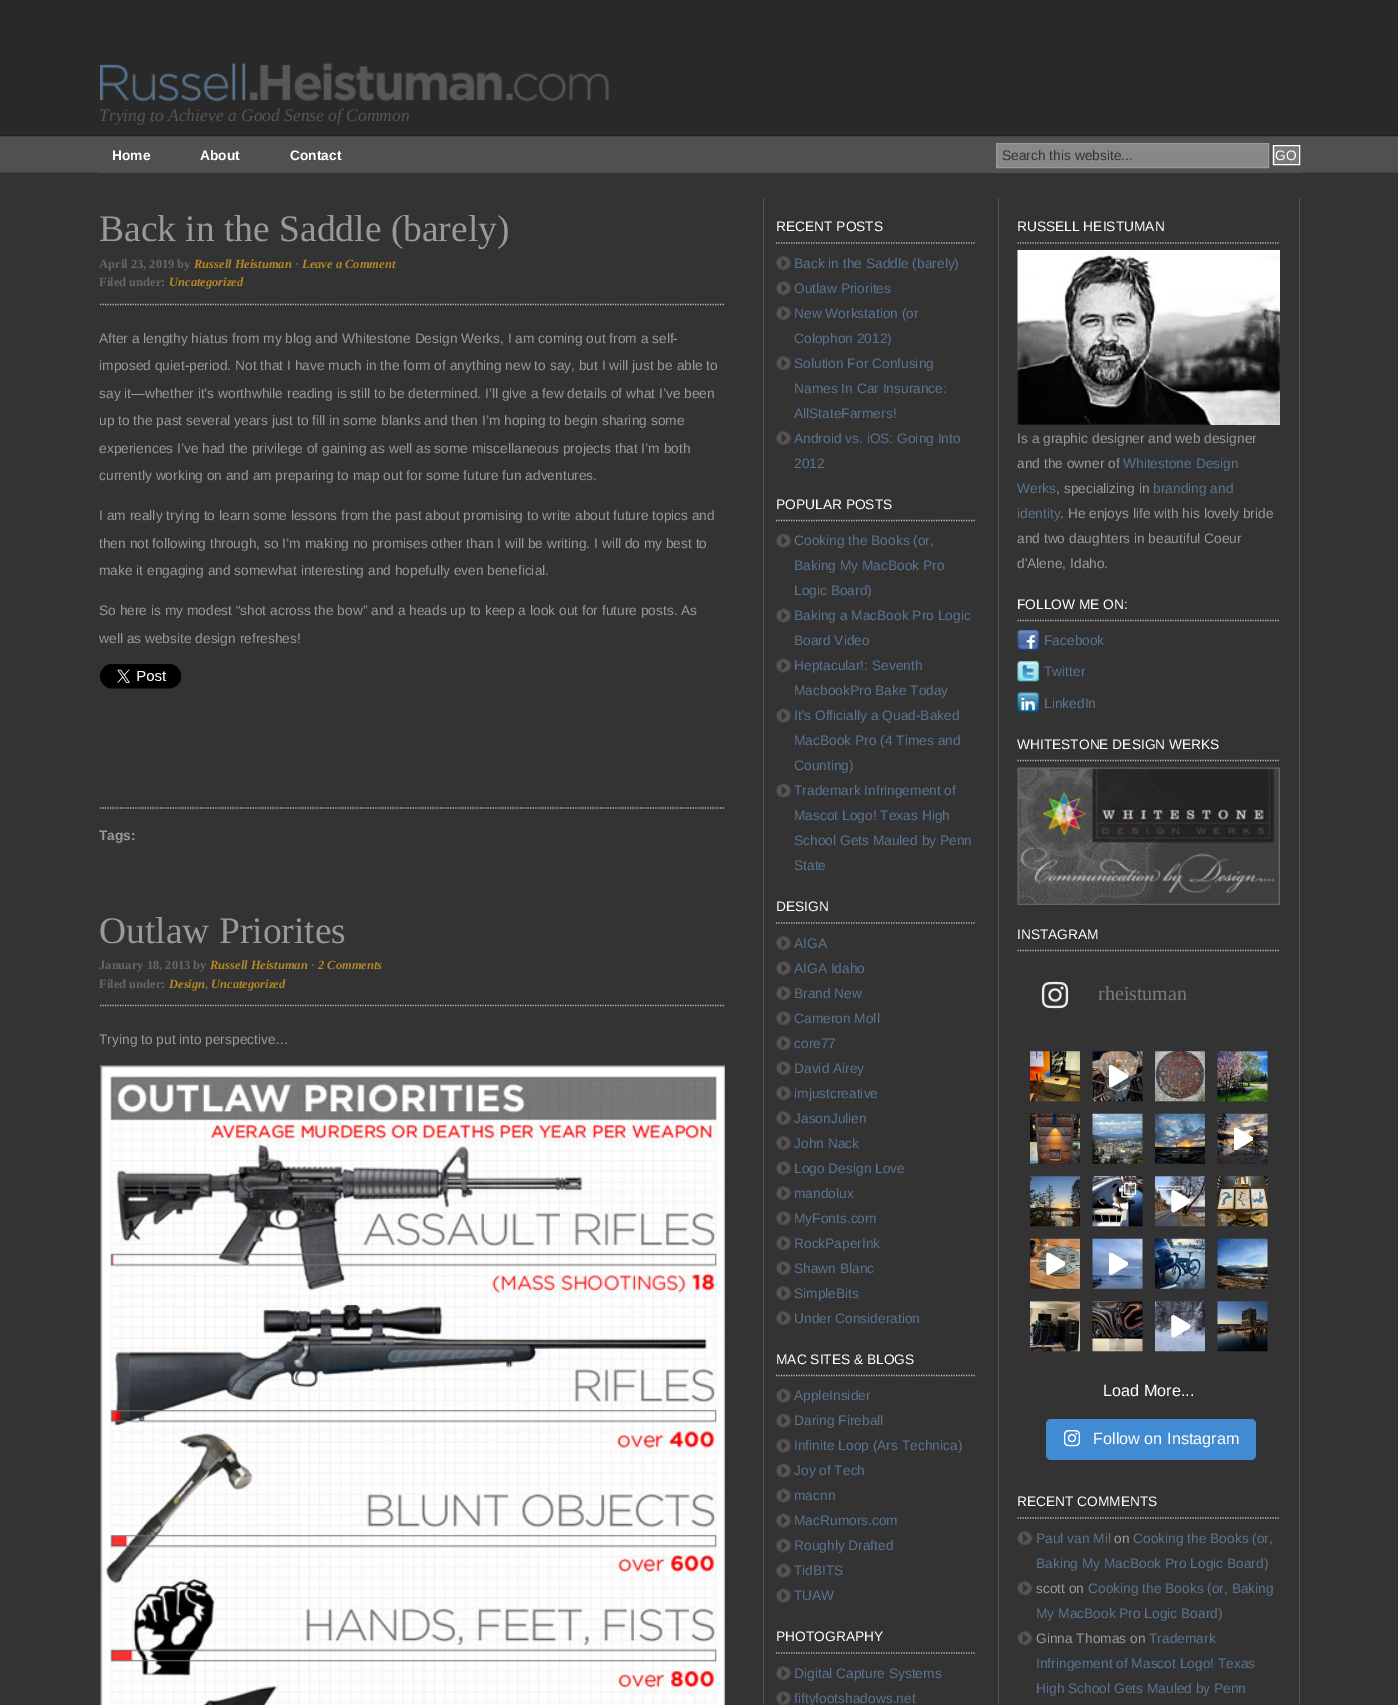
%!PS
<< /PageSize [1398 1705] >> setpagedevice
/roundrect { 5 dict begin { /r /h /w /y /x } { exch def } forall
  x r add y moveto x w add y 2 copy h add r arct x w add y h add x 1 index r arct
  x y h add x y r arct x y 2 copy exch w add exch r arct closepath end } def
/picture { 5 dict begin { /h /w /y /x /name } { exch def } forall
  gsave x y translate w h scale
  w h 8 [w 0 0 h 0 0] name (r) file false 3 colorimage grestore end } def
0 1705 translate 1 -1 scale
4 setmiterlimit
0.2 setgray
0 0 1398 1705 rectfill
(img1.rgb) 0 0 1398 173 picture
(img2.rgb) 100 62 509 40 picture
/LiberationSerif-Italic [17.5 0 0 -17.5 0 0] selectfont
0.333 setgray
99 121 moveto (Trying to Achieve a Good Sense of Common) show
0.314 setgray
100 172 1200 1 rectfill
/LiberationSans-Bold [13.75 0 0 -13.75 0 0] selectfont
1 setgray
112 160 moveto (Home) show
200 160 moveto (About) show
290 160 moveto (Contact) show
0.533 setgray
newpath 996.5 143.5 moveto 1268.5 143.5 lineto 1268.5 167.5 lineto 996.5 167.5 lineto closepath gsave fill grestore
0.6 setgray
stroke
/LiberationSans-Regular [13.75 0 0 -13.75 0 0] selectfont
0.2 setgray
1002 160 moveto (Search this website...) show
0.478 setgray
1272 145 27 20 rectfill
1 setgray
1273.5 145.5 26 19 rectstroke
1275 160 moveto (GO) show
/LiberationSerif-Regular [37.5 0 0 -37.5 0 0] selectfont
0.6 setgray
99 241 moveto (Back in the Saddle \(barely\)) show
0.733 setgray
1.2 setlinewidth
[1.25 1.25] 0 setdash
newpath 100 304.5 moveto 725 304.5 lineto stroke
/LiberationSerif-Bold [12.5 0 0 -12.5 0 0] selectfont
0.4 setgray
99 268 moveto (April 23, 2019 by) show
/LiberationSerif-BoldItalic [12.5 0 0 -12.5 0 0] selectfont
0.71 0.533 0.149 setrgbcolor
194 268 moveto (Russell Heistuman) show
/LiberationSerif-Bold [12.5 0 0 -12.5 0 0] selectfont
0.4 setgray
295 268 moveto (·) show
/LiberationSerif-BoldItalic [12.5 0 0 -12.5 0 0] selectfont
0.71 0.533 0.149 setrgbcolor
302 268 moveto (Leave a Comment) show
/LiberationSerif-Bold [12.5 0 0 -12.5 0 0] selectfont
0.4 setgray
99 286 moveto (Filed under:) show
/LiberationSerif-BoldItalic [12.5 0 0 -12.5 0 0] selectfont
0.71 0.533 0.149 setrgbcolor
169 286 moveto (Uncategorized) show
/LiberationSans-Regular [13.75 0 0 -13.75 0 0] selectfont
0.6 setgray
99 343 moveto (After a lengthy hiatus from my blog and Whitestone Design Werks, I am coming out from a self-) show
99 370 moveto (imposed quiet-period. Not that I have much in the form of anything new to say, but I will just be able to) show
99 398 moveto (say it—whether it’s worthwhile reading is still to be determined. I’ll give a few details of what I’ve been) show
99 425 moveto (up to the past several years just to fill in some blanks and then I’m hoping to begin sharing some) show
99 453 moveto (experiences I’ve had the privilege of gaining as well as some miscellaneous projects that I’m both) show
99 480 moveto (currently working on and am preparing to map out for some future fun adventures.) show
99 520 moveto (I am really trying to learn some lessons from the past about promising to write about future topics and) show
99 548 moveto (then not following through, so I’m making no promises other than I will be writing. I will do my best to) show
99 575 moveto (make it engaging and somewhat interesting and hopefully even beneficial.) show
99 615 moveto (So here is my modest “shot across the bow” and a heads up to keep a look out for future posts. As) show
99 643 moveto (well as website design refreshes!) show
(img3.rgb) 100 664 81 25 picture
0.733 setgray
newpath 100 808 moveto 725 808 lineto stroke
/LiberationSans-Bold [13.75 0 0 -13.75 0 0] selectfont
0.6 setgray
99 840 moveto (Tags:) show
/LiberationSerif-Regular [37.5 0 0 -37.5 0 0] selectfont
99 943 moveto (Outlaw Priorites) show
0.733 setgray
newpath 100 1005.5 moveto 725 1005.5 lineto stroke
/LiberationSerif-Bold [12.5 0 0 -12.5 0 0] selectfont
0.4 setgray
99 969 moveto (January 18, 2013 by) show
/LiberationSerif-BoldItalic [12.5 0 0 -12.5 0 0] selectfont
0.71 0.533 0.149 setrgbcolor
210 969 moveto (Russell Heistuman) show
/LiberationSerif-Bold [12.5 0 0 -12.5 0 0] selectfont
0.4 setgray
311 969 moveto (·) show
/LiberationSerif-BoldItalic [12.5 0 0 -12.5 0 0] selectfont
0.71 0.533 0.149 setrgbcolor
318 969 moveto (2 Comments) show
/LiberationSerif-Bold [12.5 0 0 -12.5 0 0] selectfont
0.4 setgray
99 988 moveto (Filed under:) show
/LiberationSerif-BoldItalic [12.5 0 0 -12.5 0 0] selectfont
0.71 0.533 0.149 setrgbcolor
169 988 moveto (Design) show
/LiberationSerif-Bold [12.5 0 0 -12.5 0 0] selectfont
0.4 setgray
205 988 moveto (,) show
/LiberationSerif-BoldItalic [12.5 0 0 -12.5 0 0] selectfont
0.71 0.533 0.149 setrgbcolor
211 988 moveto (Uncategorized) show
/LiberationSans-Regular [13.75 0 0 -13.75 0 0] selectfont
0.6 setgray
99 1044 moveto (Trying to put into perspective…) show
(img4.rgb) 100 1065 625 640 picture
0.333 setgray
763 198 1 1507 rectfill
0.733 setgray
newpath 776 243 moveto 976 243 lineto stroke
1 setgray
776 231 moveto (RECENT POSTS) show
(img5.rgb) 776 256 15 14 picture
0.349 0.455 0.565 setrgbcolor
794 268 moveto (Back in the Saddle \(barely\)) show
(img5.rgb) 776 281 15 14 picture
794 293 moveto (Outlaw Priorites) show
(img5.rgb) 776 306 15 14 picture
794 318 moveto (New Workstation \(or) show
794 343 moveto (Colophon 2012\)) show
(img5.rgb) 776 356 15 14 picture
794 368 moveto (Solution For Confusing) show
794 393 moveto (Names In Car Insurance:) show
794 418 moveto (AllStateFarmers!) show
(img5.rgb) 776 431 15 14 picture
794 443 moveto (Android vs. iOS: Going Into) show
794 468 moveto (2012) show
0.733 setgray
newpath 776 520.5 moveto 976 520.5 lineto stroke
1 setgray
776 509 moveto (POPULAR POSTS) show
(img6.rgb) 776 533 15 15 picture
0.349 0.455 0.565 setrgbcolor
794 545 moveto (Cooking the Books \(or,) show
794 570 moveto (Baking My MacBook Pro) show
794 595 moveto (Logic Board\)) show
(img6.rgb) 776 608 15 15 picture
794 620 moveto (Baking a MacBook Pro Logic) show
794 645 moveto (Board Video) show
(img6.rgb) 776 658 15 15 picture
794 670 moveto (Heptacular!: Seventh) show
794 695 moveto (MacbookPro Bake Today) show
(img6.rgb) 776 708 15 15 picture
794 720 moveto (It's Officially a Quad-Baked) show
794 745 moveto (MacBook Pro \(4 Times and) show
794 770 moveto (Counting\)) show
(img7.rgb) 776 783 15 15 picture
794 795 moveto (Trademark Infringement of) show
794 820 moveto (Mascot Logo! Texas High) show
794 845 moveto (School Gets Mauled by Penn) show
794 870 moveto (State) show
0.733 setgray
newpath 776 923 moveto 976 923 lineto stroke
1 setgray
776 911 moveto (DESIGN) show
(img5.rgb) 776 936 15 14 picture
0.349 0.455 0.565 setrgbcolor
794 948 moveto (AIGA) show
(img5.rgb) 776 961 15 14 picture
794 973 moveto (AIGA Idaho) show
(img5.rgb) 776 986 15 14 picture
794 998 moveto (Brand New) show
(img5.rgb) 776 1011 15 14 picture
794 1023 moveto (Cameron Moll) show
(img5.rgb) 776 1036 15 14 picture
794 1048 moveto (core77) show
(img5.rgb) 776 1061 15 14 picture
794 1073 moveto (David Airey) show
(img5.rgb) 776 1086 15 14 picture
794 1098 moveto (imjustcreative) show
(img5.rgb) 776 1111 15 14 picture
794 1123 moveto (JasonJulien) show
(img5.rgb) 776 1136 15 14 picture
794 1148 moveto (John Nack) show
(img5.rgb) 776 1161 15 14 picture
794 1173 moveto (Logo Design Love) show
(img5.rgb) 776 1186 15 14 picture
794 1198 moveto (mandolux) show
(img5.rgb) 776 1211 15 14 picture
794 1223 moveto (MyFonts.com) show
(img5.rgb) 776 1236 15 14 picture
794 1248 moveto (RockPaperInk) show
(img5.rgb) 776 1261 15 14 picture
794 1273 moveto (Shawn Blanc) show
(img5.rgb) 776 1286 15 14 picture
794 1298 moveto (SimpleBits) show
(img5.rgb) 776 1311 15 14 picture
794 1323 moveto (Under Consideration) show
0.733 setgray
newpath 776 1375.5 moveto 976 1375.5 lineto stroke
1 setgray
776 1364 moveto (MAC SITES & BLOGS) show
(img6.rgb) 776 1388 15 15 picture
0.349 0.455 0.565 setrgbcolor
794 1400 moveto (AppleInsider) show
(img6.rgb) 776 1413 15 15 picture
794 1425 moveto (Daring Fireball) show
(img6.rgb) 776 1438 15 15 picture
794 1450 moveto (Infinite Loop \(Ars Technica\)) show
(img6.rgb) 776 1463 15 15 picture
794 1475 moveto (Joy of Tech) show
(img6.rgb) 776 1488 15 15 picture
794 1500 moveto (macnn) show
(img6.rgb) 776 1513 15 15 picture
794 1525 moveto (MacRumors.com) show
(img6.rgb) 776 1538 15 15 picture
794 1550 moveto (Roughly Drafted) show
(img7.rgb) 776 1563 15 15 picture
794 1575 moveto (TidBITS) show
(img6.rgb) 776 1588 15 15 picture
794 1600 moveto (TUAW) show
0.733 setgray
newpath 776 1653 moveto 976 1653 lineto stroke
1 setgray
776 1641 moveto (PHOTOGRAPHY) show
(img5.rgb) 776 1666 15 14 picture
0.349 0.455 0.565 setrgbcolor
794 1678 moveto (Digital Capture Systems) show
(img5.rgb) 776 1691 15 14 picture
794 1703 moveto (fiftyfootshadows.net) show
0.333 setgray
1299 198 1 1507 rectfill
998 198 1 1507 rectfill
0.733 setgray
newpath 1017.5 243 moveto 1280 243 lineto stroke
1 setgray
1017 231 moveto (RUSSELL HEISTUMAN) show
(img8.rgb) 1017 250 263 175 picture
0.6 setgray
1017 443 moveto (Is a graphic designer and web designer) show
1017 468 moveto (and the owner of) show
0.349 0.455 0.565 setrgbcolor
1123 468 moveto (Whitestone Design) show
1017 493 moveto (Werks) show
0.6 setgray
1056 493 moveto (, specializing in) show
0.349 0.455 0.565 setrgbcolor
1153 493 moveto (branding and) show
1017 518 moveto (identity) show
0.6 setgray
1060 518 moveto (. He enjoys life with his lovely bride) show
1017 543 moveto (and two daughters in beautiful Coeur) show
1017 568 moveto (d'Alene, Idaho.) show
0.733 setgray
newpath 1017.5 620.5 moveto 1280 620.5 lineto stroke
1 setgray
1017 609 moveto (FOLLOW ME ON:) show
(img9.rgb) 1017 630 22 20 picture
0.349 0.455 0.565 setrgbcolor
1044 645 moveto (Facebook) show
(img10.rgb) 1017 661 22 21 picture
1044 676 moveto (Twitter) show
(img11.rgb) 1017 692 22 21 picture
1044 708 moveto (LinkedIn) show
0.733 setgray
newpath 1017.5 760.5 moveto 1280 760.5 lineto stroke
1 setgray
1017 749 moveto (WHITESTONE DESIGN WERKS) show
(img12.rgb) 1017 767 263 138 picture
0.733 setgray
newpath 1017.5 950.5 moveto 1280 950.5 lineto stroke
1 setgray
1017 939 moveto (INSTAGRAM) show
(img13.rgb) 1041 981 28 28 picture
/LiberationSerif-Regular [20 0 0 -20 0 0] selectfont
0.482 setgray
1098 1000 moveto (rheistuman) show
(img14.rgb) 1030 1051 50 51 picture
(img15.rgb) 1092 1051 51 51 picture
(img16.rgb) 1109 1065 19 23 picture
(img17.rgb) 1155 1051 50 51 picture
(img18.rgb) 1217 1051 51 51 picture
(img19.rgb) 1030 1113 50 51 picture
(img20.rgb) 1092 1113 51 51 picture
(img21.rgb) 1155 1113 50 51 picture
(img22.rgb) 1217 1113 51 51 picture
(img23.rgb) 1234 1128 19 22 picture
(img24.rgb) 1030 1176 50 51 picture
(img25.rgb) 1092 1176 51 51 picture
(img26.rgb) 1121 1183 15 15 picture
(img27.rgb) 1155 1176 50 51 picture
(img28.rgb) 1171 1190 19 23 picture
(img29.rgb) 1217 1176 51 51 picture
(img30.rgb) 1030 1238 50 51 picture
(img31.rgb) 1046 1253 19 22 picture
(img32.rgb) 1092 1238 51 51 picture
(img33.rgb) 1109 1253 19 22 picture
(img34.rgb) 1155 1238 50 51 picture
(img35.rgb) 1217 1238 51 51 picture
(img36.rgb) 1030 1301 50 51 picture
(img37.rgb) 1092 1301 51 51 picture
(img38.rgb) 1155 1301 50 51 picture
(img39.rgb) 1171 1315 19 23 picture
(img40.rgb) 1217 1301 51 51 picture
/LiberationSans-Regular [16.25 0 0 -16.25 0 0] selectfont
1 setgray
1103 1396 moveto (Load More...) show
0.251 0.545 0.82 setrgbcolor
1046 1419 210 41 5 roundrect fill
(img41.rgb) 1064 1430 16 17 picture
1 setgray
1093 1444 moveto (Follow on Instagram) show
0.733 setgray
newpath 1017.5 1518 moveto 1280 1518 lineto stroke
/LiberationSans-Regular [13.75 0 0 -13.75 0 0] selectfont
1 setgray
1017 1506 moveto (RECENT COMMENTS) show
(img42.rgb) 1017 1531 16 14 picture
0.349 0.455 0.565 setrgbcolor
1036 1543 moveto (Paul van Mil) show
0.6 setgray
1114 1543 moveto (on) show
0.349 0.455 0.565 setrgbcolor
1133 1543 moveto (Cooking the Books \(or,) show
1036 1568 moveto (Baking My MacBook Pro Logic Board\)) show
(img42.rgb) 1017 1581 16 14 picture
0.6 setgray
1036 1593 moveto (scott on) show
0.349 0.455 0.565 setrgbcolor
1088 1593 moveto (Cooking the Books \(or, Baking) show
1036 1618 moveto (My MacBook Pro Logic Board\)) show
(img42.rgb) 1017 1631 16 14 picture
0.6 setgray
1036 1643 moveto (Ginna Thomas on) show
0.349 0.455 0.565 setrgbcolor
1149 1643 moveto (Trademark) show
1036 1668 moveto (Infringement of Mascot Logo! Texas) show
1036 1693 moveto (High School Gets Mauled by Penn) show
showpage
